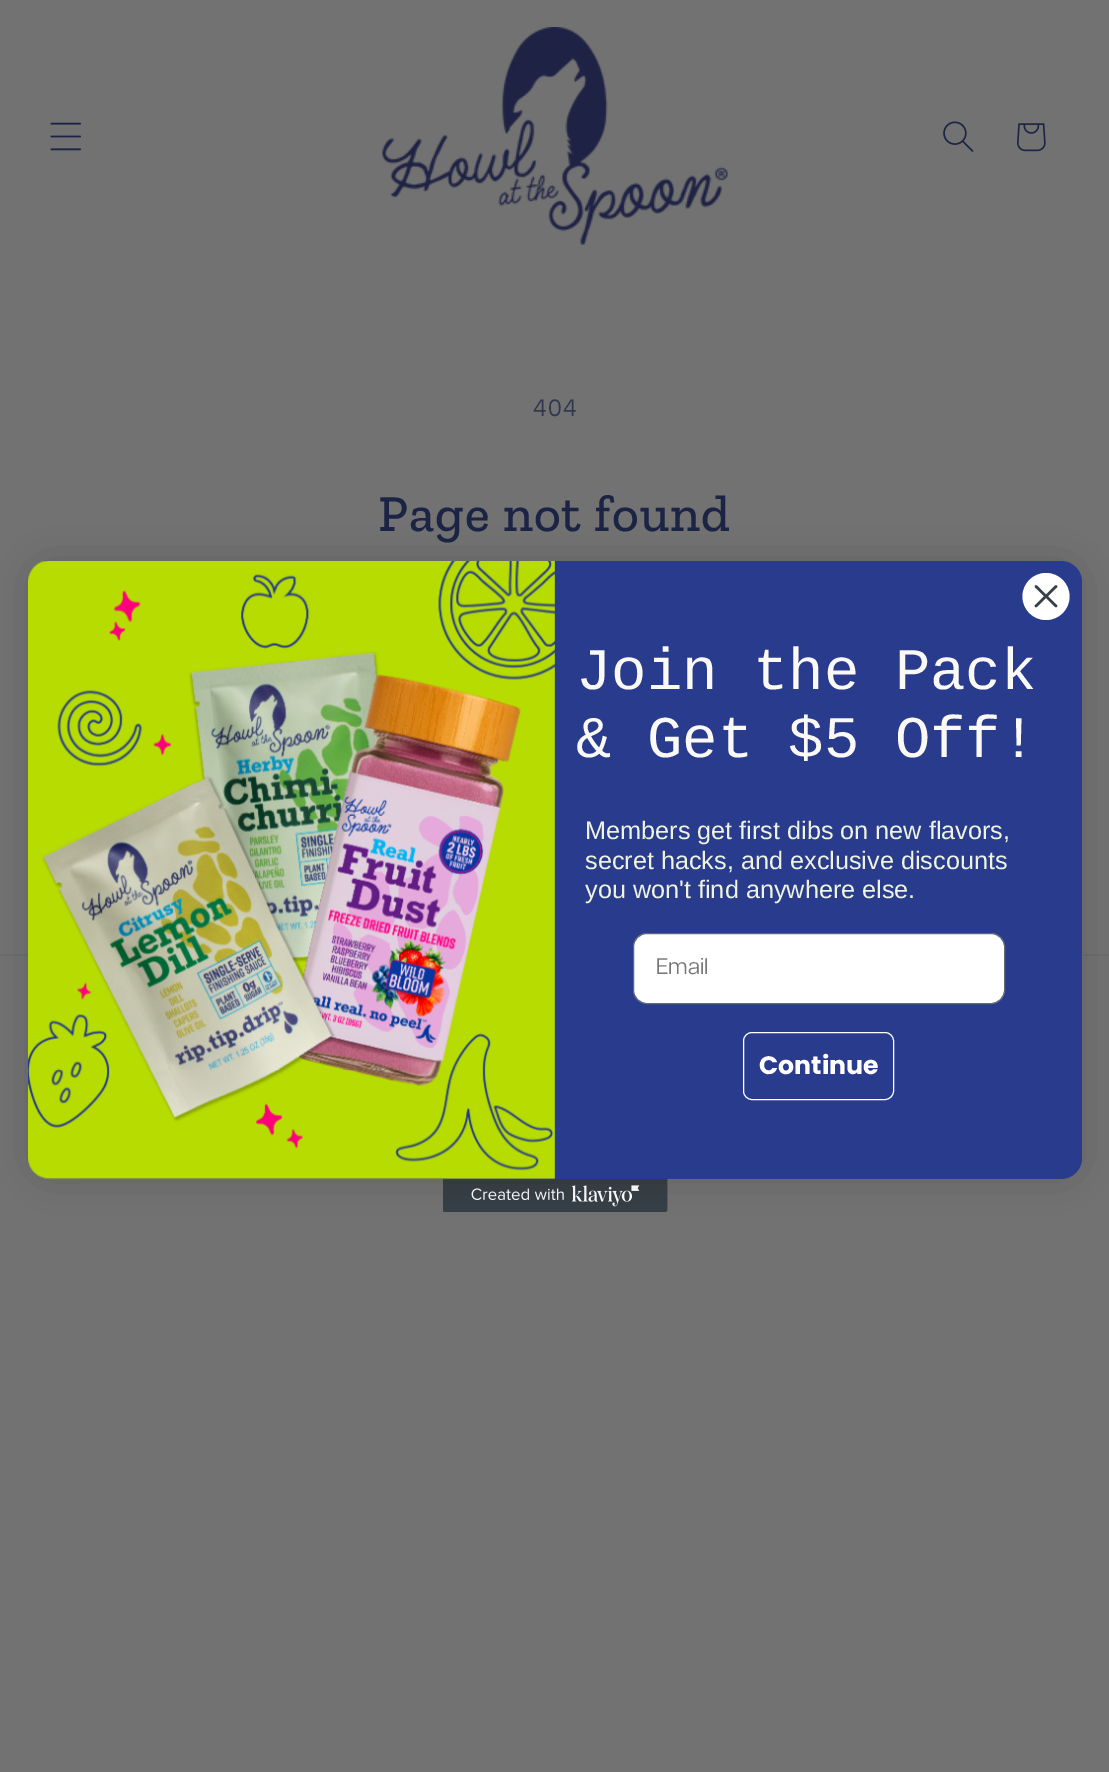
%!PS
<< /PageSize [1109 1772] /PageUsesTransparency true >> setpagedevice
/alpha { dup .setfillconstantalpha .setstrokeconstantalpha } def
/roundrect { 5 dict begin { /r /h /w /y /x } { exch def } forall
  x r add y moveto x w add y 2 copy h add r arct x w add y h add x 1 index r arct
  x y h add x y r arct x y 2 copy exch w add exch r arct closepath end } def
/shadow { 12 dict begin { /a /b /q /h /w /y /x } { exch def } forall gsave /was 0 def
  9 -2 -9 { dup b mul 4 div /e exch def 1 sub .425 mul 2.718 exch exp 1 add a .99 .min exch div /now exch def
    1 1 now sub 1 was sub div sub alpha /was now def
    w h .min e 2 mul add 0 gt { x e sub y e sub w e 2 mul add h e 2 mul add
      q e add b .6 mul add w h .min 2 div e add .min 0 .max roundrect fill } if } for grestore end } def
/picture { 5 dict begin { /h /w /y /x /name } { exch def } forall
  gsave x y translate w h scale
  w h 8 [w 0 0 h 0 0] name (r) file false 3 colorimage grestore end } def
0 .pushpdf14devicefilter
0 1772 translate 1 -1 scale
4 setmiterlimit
0.447 setgray
0 0 1109 1772 rectfill
(img1.rgb) 50 122 31 29 picture
(img2.rgb) 382 27 346 218 picture
(img3.rgb) 943 121 31 31 picture
(img4.rgb) 1017 123 29 29 picture
/Questrial-Regular [25 0 0 -25 0 0] selectfont
0.196 0.216 0.314 setrgbcolor
533 416 moveto 1 0 (404) ashow
/ZillaSlab-Medium [51.75 0 0 -51.75 0 0] selectfont
0.11 0.141 0.271 setrgbcolor
378 531 moveto 1 0 (Page not found) ashow
(img6.rgb) 443 1179 225 33 picture
0.42 0.424 0.431 setrgbcolor
0 954 1109 2 rectfill
0 setgray
29 561 1053 618 21 21 0.15 shadow
0.161 0.231 0.553 setrgbcolor
29 561 1053 618 21 roundrect fill
1 setgray
newpath 1046 596.5 23.5 0 360 arc closepath fill
0.216 0.247 0.278 setrgbcolor
2.5 setlinewidth
1 setlinecap
1 setlinejoin
newpath 1036 586.5 moveto 1056 606 lineto 1036 606 moveto 1056 586.5 lineto closepath stroke
(img5.rgb) 28 561 527 619 picture
/LiberationMono-Regular [59 0 0 -59 0 0] selectfont
0.98 0.976 0.965 setrgbcolor
576 689 moveto (Join the Pack) show
576 757 moveto (& Get $5 Off!) show
/LiberationSans-Regular [25.25 0 0 -25.25 0 0] selectfont
0.937 0.957 0.878 setrgbcolor
585 839 moveto (Members get first dibs on new flavors,) show
585 869 moveto (secret hacks, and exclusive discounts) show
585 898 moveto (you won't find anywhere else.) show
1 setgray
633.5 933.5 371 70 13.5 roundrect gsave fill grestore
0.376 0.416 0.447 setrgbcolor
1 setlinewidth
0 setlinecap
0 setlinejoin
stroke
/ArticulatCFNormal-Regular [22.5 0 0 -22.5 0 0] selectfont
0.463 setgray
656 974 moveto (Email) show
1 setgray
743.5 1032.5 150 67 8.5 roundrect stroke
/Poppins-Bold [25.25 0 0 -25.25 0 0] selectfont
759 1074 moveto (Continue) show
.poppdf14devicefilter showpage
